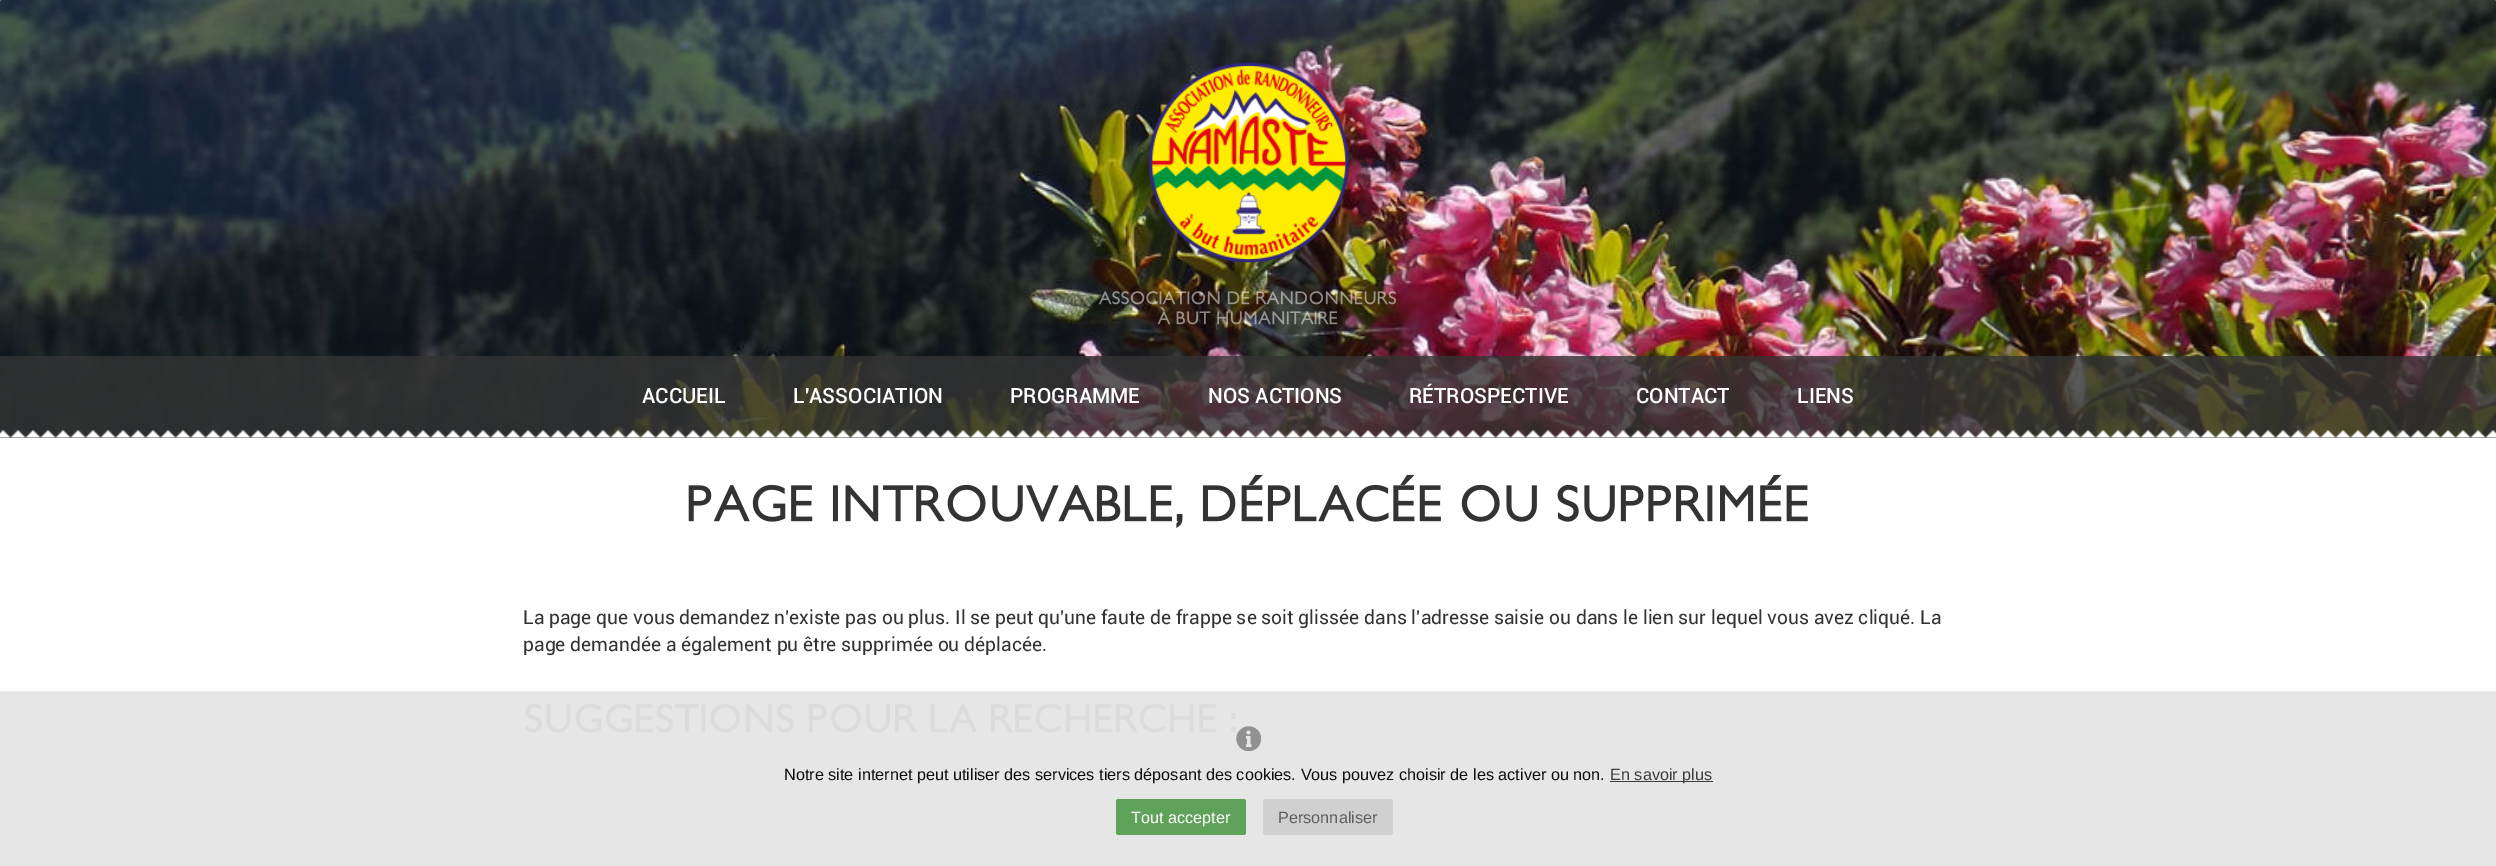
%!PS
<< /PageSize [2496 866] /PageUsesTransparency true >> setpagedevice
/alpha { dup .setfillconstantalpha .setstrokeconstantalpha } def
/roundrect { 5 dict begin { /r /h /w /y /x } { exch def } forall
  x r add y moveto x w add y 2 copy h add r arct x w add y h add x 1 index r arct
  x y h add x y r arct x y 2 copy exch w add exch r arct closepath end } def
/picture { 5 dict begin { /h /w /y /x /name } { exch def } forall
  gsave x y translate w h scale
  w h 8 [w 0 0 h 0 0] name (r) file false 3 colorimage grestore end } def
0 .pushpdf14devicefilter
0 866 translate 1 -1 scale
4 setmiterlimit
1 setgray
0 0 2496 866 rectfill
0.902 setgray
0 692 2496 174 rectfill
(img1.rgb) 0 0 2496 438 picture
(img2.rgb) 1148 62 201 201 picture
(img3.rgb) 1098 291 299 14 picture
(img4.rgb) 1157 307 181 18 picture
0.8 alpha
0.2 setgray
0 356 2496 82 rectfill
1 alpha
(img5.rgb) 0 430 2496 8 picture
/Roboto-Medium [21 0 0 -21 0 0] selectfont
1 setgray
642 403 moveto (ACCUEIL) show
793 403 moveto (L'ASSOCIATION) show
1010 403 moveto (PROGRAMME) show
1208 403 moveto (NOS ACTIONS) show
1409 403 moveto (RÉTROSPECTIVE) show
1636 403 moveto (CONTACT) show
1797 403 moveto (LIENS) show
(img6.rgb) 688 474 1120 54 picture
/Roboto-Regular [19.25 0 0 -19.25 0 0] selectfont
0.2 setgray
523 624 moveto (La page que vous demandez n'existe pas ou plus. Il se peut qu'une faute de frappe se soit glissée dans l'adresse saisie ou dans le lien sur lequel vous avez cliqué. La) show
523 651 moveto (page demandée a également pu être supprimée ou déplacée.) show
(img7.rgb) 525 703 711 30 picture
0.918 setgray
0 691 2496 1 rectfill
(img8.rgb) 1236 726 25 25 picture
/LiberationSans-Regular [16.25 0 0 -16.25 0 0] selectfont
0.051 setgray
784 780 moveto (Notre site internet peut utiliser des services tiers déposant des cookies. Vous pouvez choisir de les activer ou non.) show
0.239 setgray
1610 781 103 1 rectfill
1610 780 moveto (En savoir plus) show
0.373 0.635 0.353 setrgbcolor
1116 799 130 36 2.5 roundrect fill
1 setgray
1131 823 moveto (Tout accepter) show
0.816 setgray
1263 799 130 36 2.5 roundrect fill
0.369 setgray
1278 823 moveto (Personnaliser) show
.poppdf14devicefilter showpage
